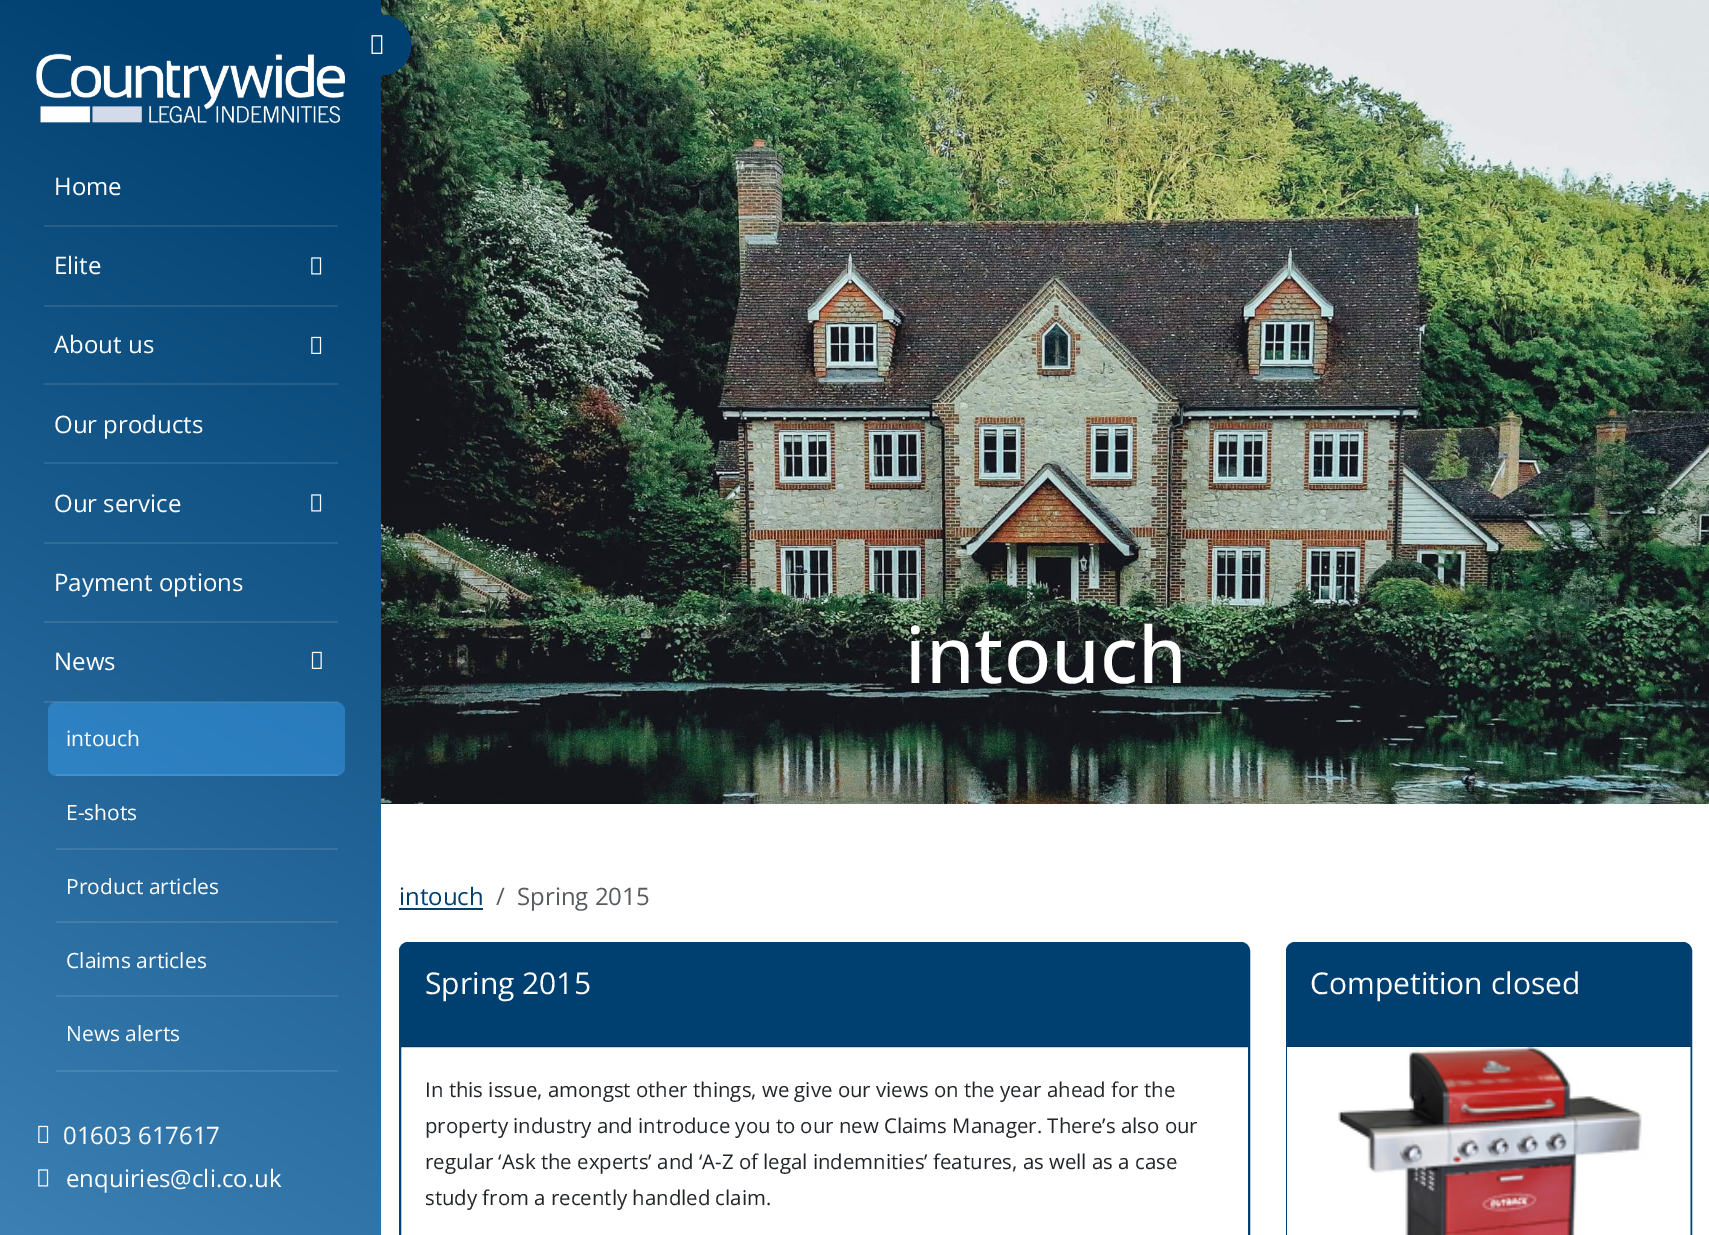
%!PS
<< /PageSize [1709 1235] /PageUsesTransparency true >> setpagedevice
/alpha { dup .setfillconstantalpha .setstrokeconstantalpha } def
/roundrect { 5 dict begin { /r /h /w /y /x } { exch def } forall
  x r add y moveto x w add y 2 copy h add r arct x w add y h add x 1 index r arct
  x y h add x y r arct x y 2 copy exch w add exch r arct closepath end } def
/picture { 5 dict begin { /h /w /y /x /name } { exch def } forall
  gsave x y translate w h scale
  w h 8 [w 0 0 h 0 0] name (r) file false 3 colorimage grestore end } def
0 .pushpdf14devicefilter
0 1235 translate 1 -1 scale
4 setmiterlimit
1 setgray
0 0 1709 1235 rectfill
0.82 setgray
401 1047 847 1 rectfill
gsave newpath 0 0 moveto 381 0 lineto 381 1235 lineto 0 1235 lineto closepath clip newpath
<< /ShadingType 2 /ColorSpace /DeviceRGB /Coords [506 72 -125 1164] /Extend [true true] /Function << /FunctionType 3 /Domain [0 1] /Functions [<< /FunctionType 2 /Domain [0 1] /C0 [0 0.251 0.443] /C1 [0 0.251 0.443] /N 1 >> << /FunctionType 2 /Domain [0 1] /C0 [0 0.251 0.443] /C1 [0.235 0.502 0.706] /N 1 >>] /Bounds [0.1] /Encode [0 1 0 1] >> >> shfill grestore
gsave newpath 56 1070 moveto 338 1070 lineto 338 1072 lineto 56 1072 lineto closepath clip newpath
<< /ShadingType 2 /ColorSpace /DeviceRGB /Coords [506 72 -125 1164] /Extend [true true] /Function << /FunctionType 3 /Domain [0 1] /Functions [<< /FunctionType 2 /Domain [0 1] /C0 [0.102 0.325 0.498] /C1 [0.102 0.325 0.498] /N 1 >> << /FunctionType 2 /Domain [0 1] /C0 [0.102 0.325 0.498] /C1 [0.314 0.553 0.737] /N 1 >>] /Bounds [0.1] /Encode [0 1 0 1] >> >> shfill grestore
gsave newpath 56 995 moveto 338 995 lineto 338 997 lineto 56 997 lineto closepath clip newpath
<< /ShadingType 2 /ColorSpace /DeviceRGB /Coords [506 72 -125 1164] /Extend [true true] /Function << /FunctionType 3 /Domain [0 1] /Functions [<< /FunctionType 2 /Domain [0 1] /C0 [0.102 0.325 0.498] /C1 [0.102 0.325 0.498] /N 1 >> << /FunctionType 2 /Domain [0 1] /C0 [0.102 0.325 0.498] /C1 [0.314 0.553 0.737] /N 1 >>] /Bounds [0.1] /Encode [0 1 0 1] >> >> shfill grestore
gsave newpath 56 921 moveto 338 921 lineto 338 923 lineto 56 923 lineto closepath clip newpath
<< /ShadingType 2 /ColorSpace /DeviceRGB /Coords [506 72 -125 1164] /Extend [true true] /Function << /FunctionType 3 /Domain [0 1] /Functions [<< /FunctionType 2 /Domain [0 1] /C0 [0.102 0.325 0.498] /C1 [0.102 0.325 0.498] /N 1 >> << /FunctionType 2 /Domain [0 1] /C0 [0.102 0.325 0.498] /C1 [0.314 0.553 0.737] /N 1 >>] /Bounds [0.1] /Encode [0 1 0 1] >> >> shfill grestore
gsave newpath 56 848 moveto 338 848 lineto 338 850 lineto 56 850 lineto closepath clip newpath
<< /ShadingType 2 /ColorSpace /DeviceRGB /Coords [506 72 -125 1164] /Extend [true true] /Function << /FunctionType 3 /Domain [0 1] /Functions [<< /FunctionType 2 /Domain [0 1] /C0 [0.102 0.325 0.498] /C1 [0.102 0.325 0.498] /N 1 >> << /FunctionType 2 /Domain [0 1] /C0 [0.102 0.325 0.498] /C1 [0.314 0.553 0.737] /N 1 >>] /Bounds [0.1] /Encode [0 1 0 1] >> >> shfill grestore
gsave newpath 44 701 moveto 338 701 lineto 338 703 lineto 44 703 lineto closepath clip newpath
<< /ShadingType 2 /ColorSpace /DeviceRGB /Coords [506 72 -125 1164] /Extend [true true] /Function << /FunctionType 3 /Domain [0 1] /Functions [<< /FunctionType 2 /Domain [0 1] /C0 [0.102 0.325 0.498] /C1 [0.102 0.325 0.498] /N 1 >> << /FunctionType 2 /Domain [0 1] /C0 [0.102 0.325 0.498] /C1 [0.314 0.553 0.737] /N 1 >>] /Bounds [0.1] /Encode [0 1 0 1] >> >> shfill grestore
gsave newpath 44 621 moveto 338 621 lineto 338 623 lineto 44 623 lineto closepath clip newpath
<< /ShadingType 2 /ColorSpace /DeviceRGB /Coords [506 72 -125 1164] /Extend [true true] /Function << /FunctionType 3 /Domain [0 1] /Functions [<< /FunctionType 2 /Domain [0 1] /C0 [0.102 0.325 0.498] /C1 [0.102 0.325 0.498] /N 1 >> << /FunctionType 2 /Domain [0 1] /C0 [0.102 0.325 0.498] /C1 [0.314 0.553 0.737] /N 1 >>] /Bounds [0.1] /Encode [0 1 0 1] >> >> shfill grestore
gsave newpath 44 542 moveto 338 542 lineto 338 544 lineto 44 544 lineto closepath clip newpath
<< /ShadingType 2 /ColorSpace /DeviceRGB /Coords [506 72 -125 1164] /Extend [true true] /Function << /FunctionType 3 /Domain [0 1] /Functions [<< /FunctionType 2 /Domain [0 1] /C0 [0.102 0.325 0.498] /C1 [0.102 0.325 0.498] /N 1 >> << /FunctionType 2 /Domain [0 1] /C0 [0.102 0.325 0.498] /C1 [0.314 0.553 0.737] /N 1 >>] /Bounds [0.1] /Encode [0 1 0 1] >> >> shfill grestore
gsave newpath 44 462 moveto 338 462 lineto 338 464 lineto 44 464 lineto closepath clip newpath
<< /ShadingType 2 /ColorSpace /DeviceRGB /Coords [506 72 -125 1164] /Extend [true true] /Function << /FunctionType 3 /Domain [0 1] /Functions [<< /FunctionType 2 /Domain [0 1] /C0 [0.102 0.325 0.498] /C1 [0.102 0.325 0.498] /N 1 >> << /FunctionType 2 /Domain [0 1] /C0 [0.102 0.325 0.498] /C1 [0.314 0.553 0.737] /N 1 >>] /Bounds [0.1] /Encode [0 1 0 1] >> >> shfill grestore
gsave newpath 44 383 moveto 338 383 lineto 338 385 lineto 44 385 lineto closepath clip newpath
<< /ShadingType 2 /ColorSpace /DeviceRGB /Coords [506 72 -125 1164] /Extend [true true] /Function << /FunctionType 3 /Domain [0 1] /Functions [<< /FunctionType 2 /Domain [0 1] /C0 [0.102 0.325 0.498] /C1 [0.102 0.325 0.498] /N 1 >> << /FunctionType 2 /Domain [0 1] /C0 [0.102 0.325 0.498] /C1 [0.314 0.553 0.737] /N 1 >>] /Bounds [0.1] /Encode [0 1 0 1] >> >> shfill grestore
gsave newpath 44 305 moveto 338 305 lineto 338 307 lineto 44 307 lineto closepath clip newpath
<< /ShadingType 2 /ColorSpace /DeviceRGB /Coords [506 72 -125 1164] /Extend [true true] /Function << /FunctionType 3 /Domain [0 1] /Functions [<< /FunctionType 2 /Domain [0 1] /C0 [0.102 0.325 0.498] /C1 [0.102 0.325 0.498] /N 1 >> << /FunctionType 2 /Domain [0 1] /C0 [0.102 0.325 0.498] /C1 [0.314 0.553 0.737] /N 1 >>] /Bounds [0.1] /Encode [0 1 0 1] >> >> shfill grestore
gsave newpath 44 225 moveto 338 225 lineto 338 227 lineto 44 227 lineto closepath clip newpath
<< /ShadingType 2 /ColorSpace /DeviceRGB /Coords [506 72 -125 1164] /Extend [true true] /Function << /FunctionType 3 /Domain [0 1] /Functions [<< /FunctionType 2 /Domain [0 1] /C0 [0.102 0.325 0.498] /C1 [0.102 0.325 0.498] /N 1 >> << /FunctionType 2 /Domain [0 1] /C0 [0.102 0.325 0.498] /C1 [0.314 0.553 0.737] /N 1 >>] /Bounds [0.1] /Encode [0 1 0 1] >> >> shfill grestore
(img9.rgb) 381 0 1328 804 picture
gsave newpath 381 45 30 0 360 arc closepath clip newpath
<< /ShadingType 2 /ColorSpace /DeviceRGB /Coords [363 9 399 81] /Extend [true true] /Function << /FunctionType 2 /Domain [0 1] /C0 [0 0.255 0.447] /C1 [0 0.255 0.451] /N 1 >> >> shfill grestore
(img1.rgb) 371 35 12 19 picture
(img2.rgb) 36 53 309 71 picture
/OpenSans-Regular [24 0 0 -24 0 0] selectfont
1 setgray
54 195 moveto (Home) show
54 274 moveto (Elite) show
(img3.rgb) 311 257 11 18 picture
54 353 moveto (About us) show
(img4.rgb) 311 336 11 18 picture
54 433 moveto (Our products) show
54 512 moveto (Our service) show
(img5.rgb) 311 494 11 18 picture
54 591 moveto (Payment options) show
54 670 moveto (News) show
(img6.rgb) 311 651 11 18 picture
0.4 alpha
0.243 0.671 1 setrgbcolor
48 702 297 74 9 roundrect fill
/OpenSans-Regular [21 0 0 -21 0 0] selectfont
1 alpha
1 setgray
66 746 moveto (intouch) show
0.1 alpha
56 774 282 2 rectfill
1 alpha
66 820 moveto (E-shots) show
66 894 moveto (Product articles) show
66 968 moveto (Claims articles) show
66 1041 moveto (News alerts) show
(img7.rgb) 38 1125 11 18 picture
/OpenSans-Regular [24 0 0 -24 0 0] selectfont
63 1144 moveto (01603 617617) show
(img8.rgb) 38 1169 11 18 picture
66 1187 moveto (enquiries@cli.co.uk) show
/OpenSans-Medium [78 0 0 -78 0 0] selectfont
905 683 moveto (intouch) show
/OpenSans-Regular [24 0 0 -24 0 0] selectfont
0 0.251 0.443 setrgbcolor
399 905 moveto (intouch) show
399 908 84 2 rectfill
0.349 0.361 0.373 setrgbcolor
496 905 moveto (/) show
517 905 moveto (Spring 2015) show
0 0.251 0.443 setrgbcolor
2 setlinewidth
400 943 849 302 8 roundrect stroke
newpath 407 944 moveto 1242 944 lineto 1245.5 944 1248 946.5 1248 950 curveto 1248 1047 lineto 401 1047 lineto 401 950 lineto 401 946.5 403.5 944 407 944 curveto closepath fill
0 0.204 0.365 setrgbcolor
401 1046 847 1 rectfill
/OpenSans-Regular [30 0 0 -30 0 0] selectfont
1 setgray
425 994 moveto (Spring 2015) show
/OpenSans-Regular [20.4 0 0 -20.4 0 0] selectfont
0.129 0.145 0.161 setrgbcolor
425 1097 moveto (In this issue, amongst other things, we give our views on the year ahead for the) show
425 1133 moveto (property industry and introduce you to our new Claims Manager. There’s also our) show
425 1169 moveto (regular ‘Ask the experts’ and ‘A-Z of legal indemnities’ features, as well as a case) show
425 1205 moveto (study from a recently handled claim.) show
0 0.251 0.443 setrgbcolor
1287 943 404 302 8 roundrect stroke
newpath 1293 944 moveto 1685 944 lineto 1688.5 944 1691 946.5 1691 950 curveto 1691 1047 lineto 1287 1047 lineto 1287 950 lineto 1287 946.5 1289.5 944 1293 944 curveto closepath fill
0.18 alpha
0 setgray
1287 1046 404 2 rectfill
/OpenSans-Regular [30 0 0 -30 0 0] selectfont
1 alpha
1 setgray
1310 994 moveto (Competition closed) show
(img10.rgb) 1287 1047 404 188 picture
.poppdf14devicefilter showpage
